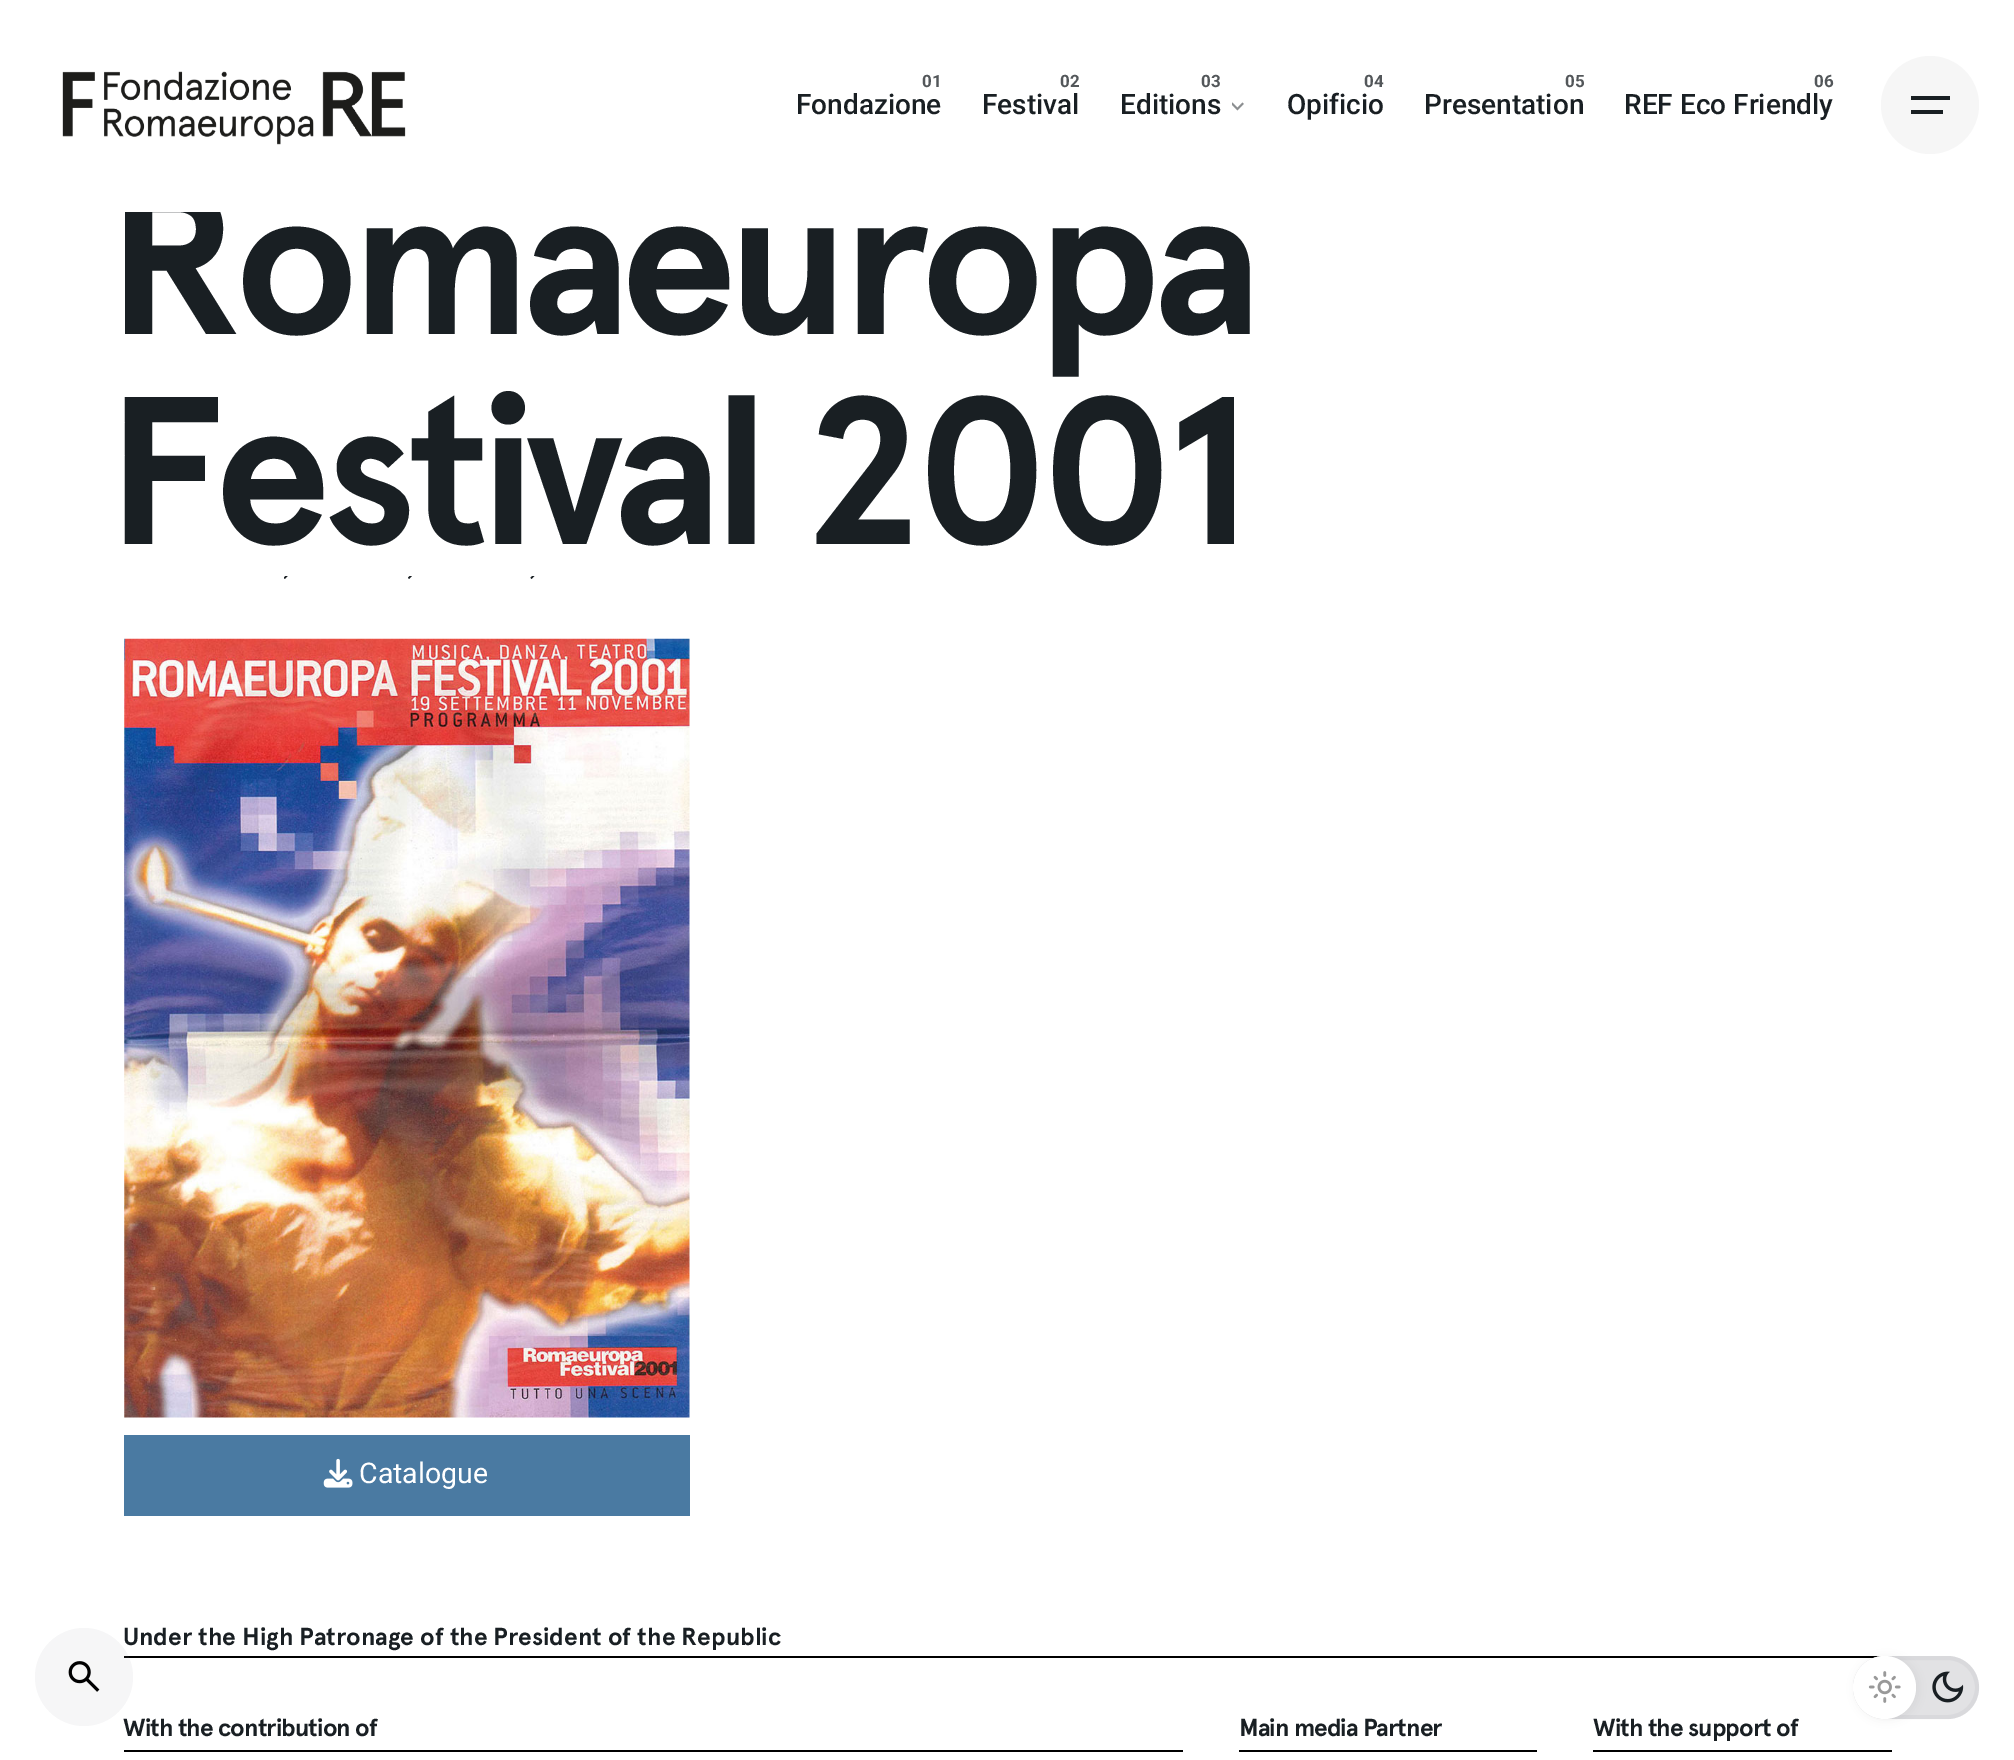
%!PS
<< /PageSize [2014 1760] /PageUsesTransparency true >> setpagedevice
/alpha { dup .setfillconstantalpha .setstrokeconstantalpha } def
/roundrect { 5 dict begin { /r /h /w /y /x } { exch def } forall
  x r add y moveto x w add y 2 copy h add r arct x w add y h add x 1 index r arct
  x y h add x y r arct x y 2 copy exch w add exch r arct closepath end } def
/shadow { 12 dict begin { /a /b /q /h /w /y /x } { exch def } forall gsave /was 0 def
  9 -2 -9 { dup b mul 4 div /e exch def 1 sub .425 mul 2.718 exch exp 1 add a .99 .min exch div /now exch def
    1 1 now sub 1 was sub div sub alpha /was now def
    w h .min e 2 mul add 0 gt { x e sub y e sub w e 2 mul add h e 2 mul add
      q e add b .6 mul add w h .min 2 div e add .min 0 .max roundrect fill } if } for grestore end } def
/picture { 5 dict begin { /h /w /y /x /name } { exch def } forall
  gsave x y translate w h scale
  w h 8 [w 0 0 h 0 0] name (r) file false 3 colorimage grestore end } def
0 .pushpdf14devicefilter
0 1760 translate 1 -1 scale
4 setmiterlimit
1 setgray
0 0 2014 1760 rectfill
/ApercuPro-Bold [210 0 0 -210 0 0] selectfont
0.098 0.122 0.137 setrgbcolor
106 334 moveto -9.5 0 (Romaeuropa) ashow
1 setgray
124 186 97 26 rectfill
(img1.rgb) 62 71 344 74 picture
/Roboto-Bold [17 0 0 -17 0 0] selectfont
0.325 0.341 0.353 setrgbcolor
922 87 moveto (01) show
/Roboto-Medium [28 0 0 -28 0 0] selectfont
0.098 0.122 0.137 setrgbcolor
796 114 moveto (Fondazione) show
/Roboto-Bold [17 0 0 -17 0 0] selectfont
0.325 0.341 0.353 setrgbcolor
1060 87 moveto (02) show
/Roboto-Medium [28 0 0 -28 0 0] selectfont
0.098 0.122 0.137 setrgbcolor
982 114 moveto (Festival) show
/Roboto-Bold [17 0 0 -17 0 0] selectfont
0.325 0.341 0.353 setrgbcolor
1201 87 moveto (03) show
/Roboto-Medium [28 0 0 -28 0 0] selectfont
0.098 0.122 0.137 setrgbcolor
1120 114 moveto (Editions) show
(img2.rgb) 1232 102 12 9 picture
/Roboto-Bold [17 0 0 -17 0 0] selectfont
0.325 0.341 0.353 setrgbcolor
1364 87 moveto (04) show
/Roboto-Medium [28 0 0 -28 0 0] selectfont
0.098 0.122 0.137 setrgbcolor
1287 114 moveto (Opificio) show
/Roboto-Bold [17 0 0 -17 0 0] selectfont
0.325 0.341 0.353 setrgbcolor
1565 87 moveto (05) show
/Roboto-Medium [28 0 0 -28 0 0] selectfont
0.098 0.122 0.137 setrgbcolor
1424 114 moveto (Presentation) show
/Roboto-Bold [17 0 0 -17 0 0] selectfont
0.325 0.341 0.353 setrgbcolor
1814 87 moveto (06) show
/Roboto-Medium [28 0 0 -28 0 0] selectfont
0.098 0.122 0.137 setrgbcolor
1624 114 moveto (REF Eco Friendly) show
0.965 setgray
newpath 1930 105 49 0 360 arc closepath fill
0.098 0.122 0.137 setrgbcolor
1911 96 39 4 rectfill
1911 110 32 4 rectfill
0 setgray
124 1656 1768 2 rectfill
0.08 alpha
0.541 0.541 0.576 setrgbcolor
newpath 84 1677 49 0 360 arc closepath fill
1 alpha
(img3.rgb) 68 1661 32 31 picture
/ApercuPro-Bold [210 0 0 -210 0 0] selectfont
0.098 0.122 0.137 setrgbcolor
106 544 moveto -9.5 0 (Festival 2001) ashow
(img4.rgb) 284 576 4 3 picture
(img5.rgb) 408 576 4 3 picture
(img6.rgb) 530 576 5 3 picture
(img7.rgb) 124 638 566 780 picture
0.29 0.478 0.635 setrgbcolor
124 1435 566 81 rectfill
(img8.rgb) 323 1458 30 30 picture
/Roboto-Regular [28.5 0 0 -28.5 0 0] selectfont
1 setgray
359 1483 moveto (Catalogue) show
/ApercuPro-Bold [24.5 0 0 -24.5 0 0] selectfont
0.098 0.122 0.137 setrgbcolor
123 1645 moveto (Under the High Patronage of the President of the Republic) show
0 setgray
124 1750 1059 2 rectfill
0.098 0.122 0.137 setrgbcolor
123 1736 moveto -0.9 0 (With the contribution of) ashow
0 setgray
1239 1750 298 2 rectfill
0.098 0.122 0.137 setrgbcolor
1239 1736 moveto -0.9 0 (Main media Partner) ashow
0 setgray
1593 1750 299 2 rectfill
0.098 0.122 0.137 setrgbcolor
1593 1736 moveto -0.9 0 (With the support of) ashow
0.886 0.886 0.894 setrgbcolor
1853 1656 126 63 31.5 roundrect fill
0.1 alpha
0.541 0.541 0.576 setrgbcolor
4 setlinewidth
1855 1658 122 59 29.5 roundrect stroke
1 alpha
(img10.rgb) 1932 1671 32 32 picture
0.067 0.063 0.075 setrgbcolor
1855 1657 63 63 31.5 5 0.05 shadow
1 setgray
newpath 1884.5 1687.5 31.5 0 360 arc closepath fill
(img9.rgb) 1868 1671 33 32 picture
.poppdf14devicefilter showpage
